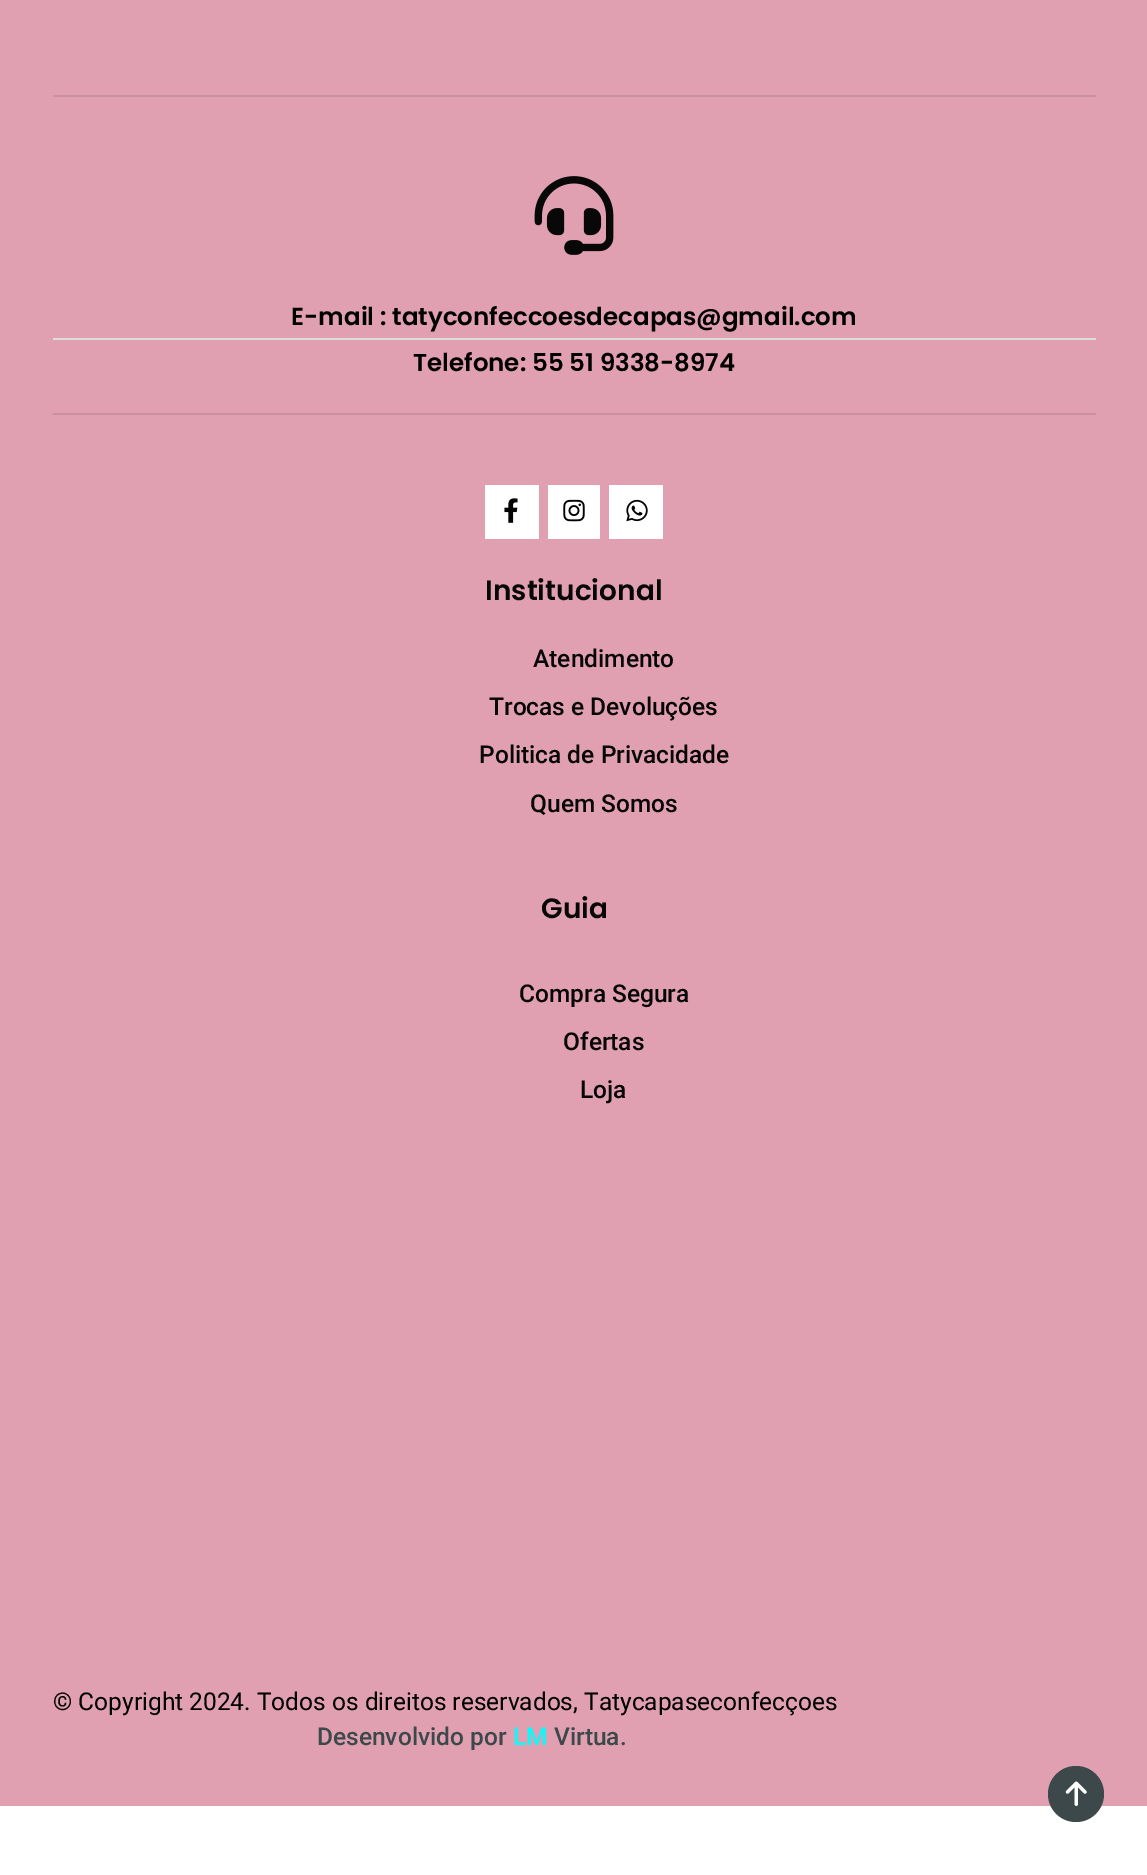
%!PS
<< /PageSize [1147 1875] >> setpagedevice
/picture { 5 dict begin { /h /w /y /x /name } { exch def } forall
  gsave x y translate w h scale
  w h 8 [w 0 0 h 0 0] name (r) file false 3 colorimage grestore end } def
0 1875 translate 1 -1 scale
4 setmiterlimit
1 setgray
0 0 1147 1875 rectfill
0.882 0.627 0.698 setrgbcolor
0 0 1147 1806 rectfill
0.796 0.565 0.627 setrgbcolor
53 95 1043 2 rectfill
(img1.rgb) 534 176 80 79 picture
/Poppins-SemiBold [24.5 0 0 -24.5 0 0] selectfont
0 setgray
291 325 moveto (E-mail : tatyconfeccoesdecapas@gmail.com) show
0.867 setgray
53 338 1043 2 rectfill
0 setgray
413 371 moveto (Telefone: 55 51 9338-8974) show
0.796 0.565 0.627 setrgbcolor
53 413 1043 2 rectfill
1 setgray
485 485 54 54 rectfill
(img2.rgb) 504 498 14 25 picture
548 485 52 54 rectfill
(img3.rgb) 563 499 22 23 picture
609 485 54 54 rectfill
(img4.rgb) 626 499 22 23 picture
/Poppins-SemiBold [28 0 0 -28 0 0] selectfont
0.027 setgray
485 600 moveto (Institucional) show
/Roboto-Medium [24.5 0 0 -24.5 0 0] selectfont
533 667 moveto (Atendimento) show
489 715 moveto (Trocas e Devoluções) show
479 763 moveto (Politica de Privacidade) show
530 812 moveto (Quem Somos) show
/Poppins-SemiBold [28 0 0 -28 0 0] selectfont
541 918 moveto (Guia) show
/Roboto-Medium [24.5 0 0 -24.5 0 0] selectfont
519 1002 moveto (Compra Segura) show
563 1050 moveto (Ofertas) show
580 1098 moveto (Loja) show
/Roboto-Regular [24.5 0 0 -24.5 0 0] selectfont
0 setgray
53 1710 moveto (© Copyright 2024. Todos os direitos reservados, Tatycapaseconfecçoes) show
/Roboto-Medium [24.5 0 0 -24.5 0 0] selectfont
0.239 0.282 0.29 setrgbcolor
317 1745 moveto (Desenvolvido por) show
0 1 1 setrgbcolor
513 1745 moveto (LM) show
0.239 0.282 0.29 setrgbcolor
554 1745 moveto (Virtua.) show
newpath 1076 1794 28 0 360 arc closepath fill
(img5.rgb) 1065 1781 22 25 picture
showpage
